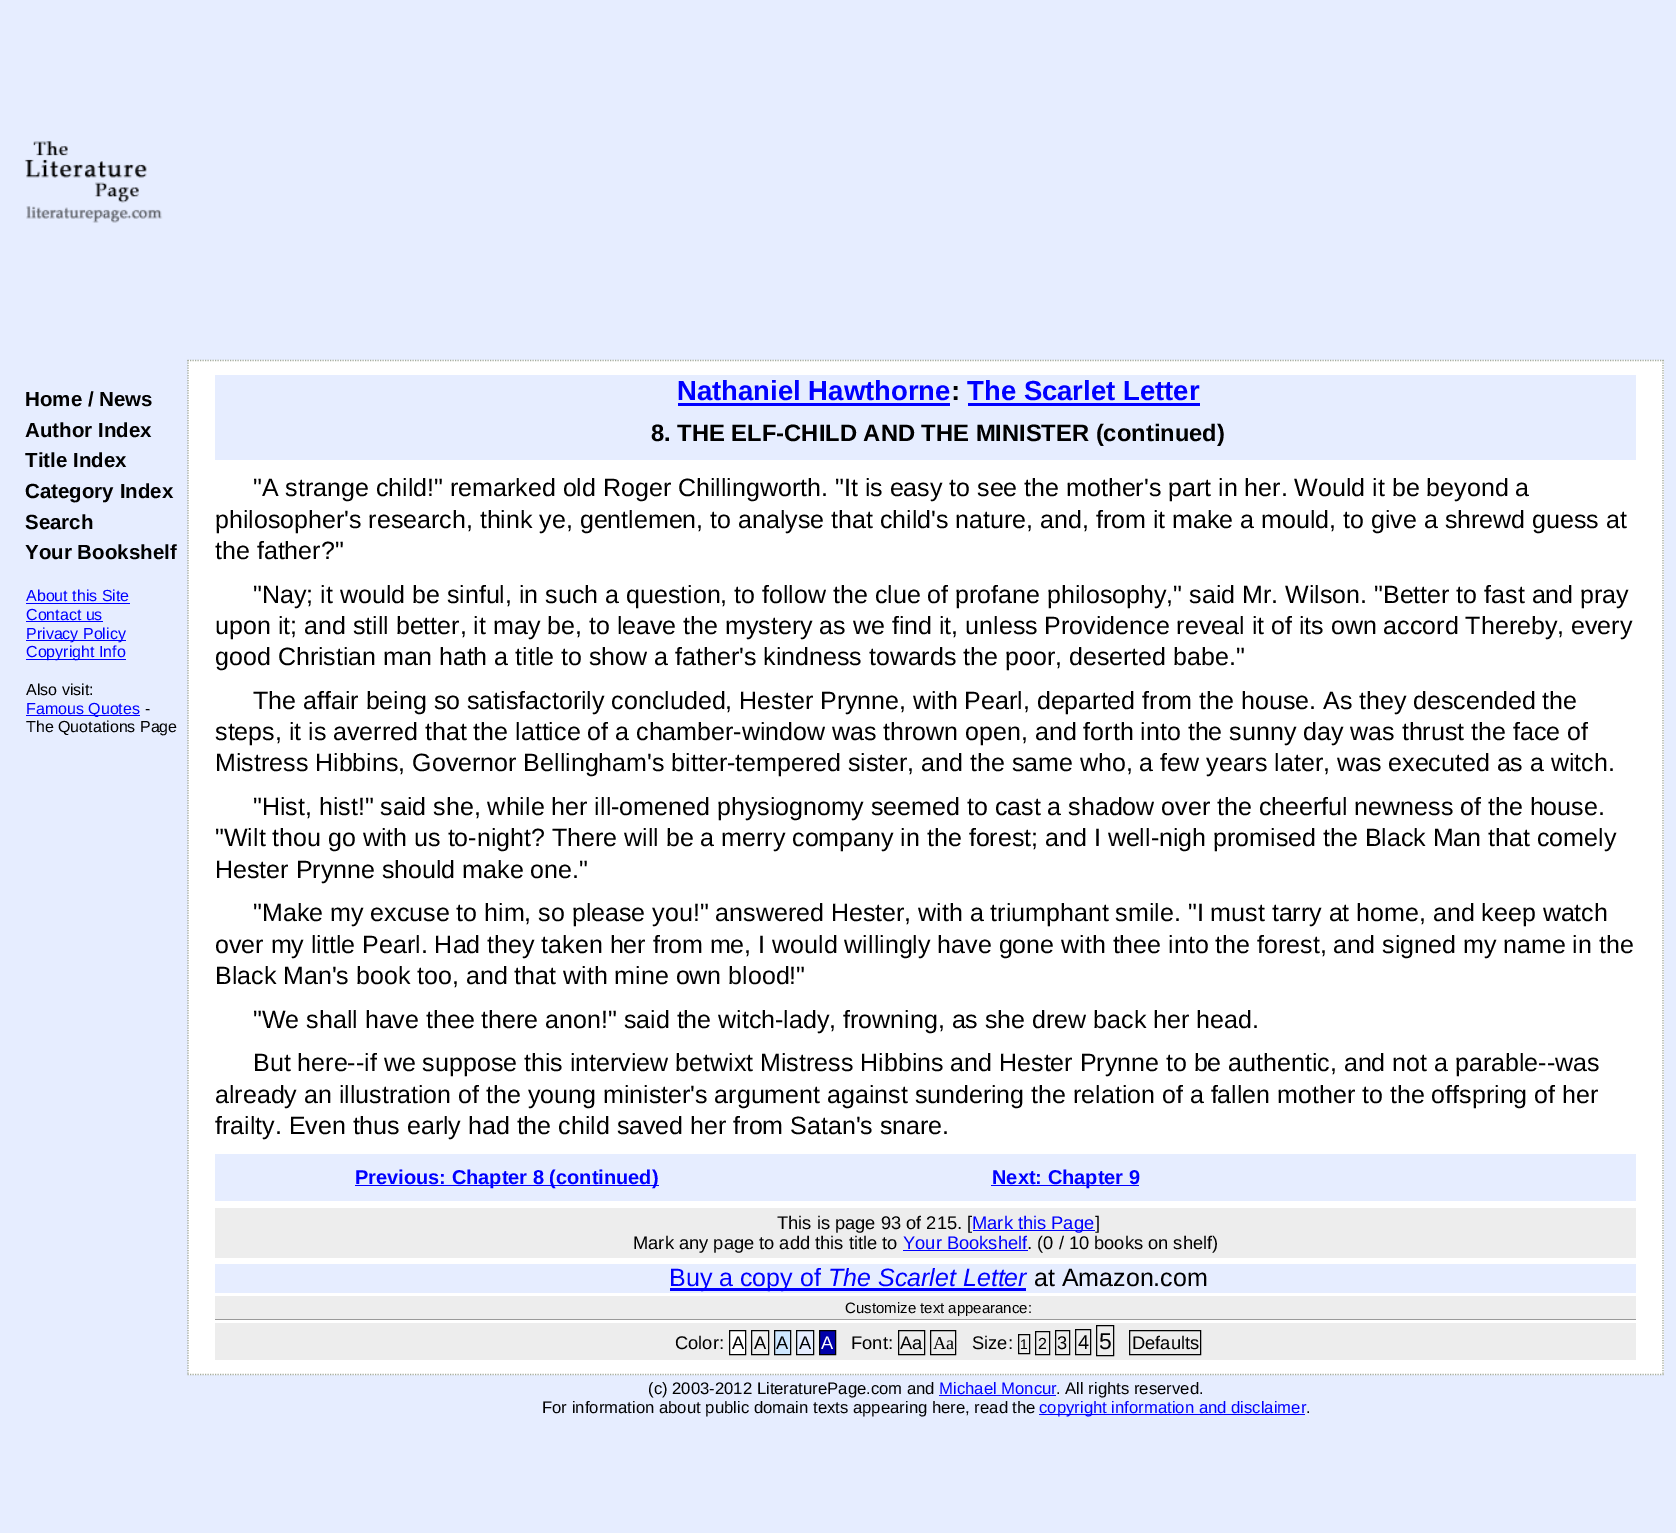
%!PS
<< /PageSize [1676 1533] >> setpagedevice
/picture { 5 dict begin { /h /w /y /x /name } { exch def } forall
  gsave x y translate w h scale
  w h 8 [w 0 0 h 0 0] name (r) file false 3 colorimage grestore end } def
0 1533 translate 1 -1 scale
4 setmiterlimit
0.902 0.929 1 setrgbcolor
0 0 1676 1533 rectfill
(img1.rgb) 24 141 139 82 picture
/LiberationSans-Bold [20.5 0 0 -20.5 0 0] selectfont
0 setgray
25 406 moveto (Home / News) show
25 437 moveto (Author Index) show
25 467 moveto (Title Index) show
25 498 moveto (Category Index) show
25 529 moveto (Search) show
25 559 moveto (Your Bookshelf) show
/LiberationSans-Regular [16 0 0 -16 0 0] selectfont
0 0 1 setrgbcolor
26 601 moveto (About this Site) show
26 603 104 1 rectfill
26 620 moveto (Contact us) show
26 621 77 1 rectfill
26 640 100 1 rectfill
26 639 moveto (Privacy Policy) show
26 659 100 1 rectfill
26 657 moveto (Copyright Info) show
0 setgray
26 695 moveto (Also visit:) show
0 0 1 setrgbcolor
26 715 114 1 rectfill
26 714 moveto (Famous Quotes) show
0 setgray
145 714 moveto (-) show
26 732 moveto (The Quotations Page) show
1 setgray
188 360 1476 1015 rectfill
0.651 0.678 0.624 setrgbcolor
1.2 setlinewidth
[1.25 1.25] 0 setdash
newpath 187.5 360.5 moveto 1664 360.5 lineto stroke
newpath 1663 360 moveto 1663 1375 lineto stroke
newpath 187.5 1374.5 moveto 1664 1374.5 lineto stroke
newpath 188 360 moveto 188 1375 lineto stroke
0.902 0.929 1 setrgbcolor
215 375 1421 85 rectfill
/LiberationSans-Bold [27.5 0 0 -27.5 0 0] selectfont
0 0 1 setrgbcolor
677 400 moveto (Nathaniel Hawthorne) show
678 403 272 3 rectfill
0 setgray
951 400 moveto (:) show
0 0 1 setrgbcolor
967 400 moveto (The Scarlet Letter) show
968 403 232 3 rectfill
/LiberationSans-Bold [23.75 0 0 -23.75 0 0] selectfont
0 setgray
651 441 moveto (8. THE ELF-CHILD AND THE MINISTER \(continued\)) show
/LiberationSans-Regular [25 0 0 -25 0 0] selectfont
253 496 moveto ("A strange child!" remarked old Roger Chillingworth. "It is easy to see the mother's part in her. Would it be beyond a) show
215 528 moveto (philosopher's research, think ye, gentlemen, to analyse that child's nature, and, from it make a mould, to give a shrewd guess at) show
215 559 moveto (the father?") show
253 603 moveto ("Nay; it would be sinful, in such a question, to follow the clue of profane philosophy," said Mr. Wilson. "Better to fast and pray) show
215 634 moveto (upon it; and still better, it may be, to leave the mystery as we find it, unless Providence reveal it of its own accord Thereby, every) show
215 665 moveto (good Christian man hath a title to show a father's kindness towards the poor, deserted babe.") show
253 709 moveto (The affair being so satisfactorily concluded, Hester Prynne, with Pearl, departed from the house. As they descended the) show
215 740 moveto (steps, it is averred that the lattice of a chamber-window was thrown open, and forth into the sunny day was thrust the face of) show
215 771 moveto (Mistress Hibbins, Governor Bellingham's bitter-tempered sister, and the same who, a few years later, was executed as a witch.) show
253 815 moveto ("Hist, hist!" said she, while her ill-omened physiognomy seemed to cast a shadow over the cheerful newness of the house.) show
215 846 moveto ("Wilt thou go with us to-night? There will be a merry company in the forest; and I well-nigh promised the Black Man that comely) show
215 878 moveto (Hester Prynne should make one.") show
253 921 moveto ("Make my excuse to him, so please you!" answered Hester, with a triumphant smile. "I must tarry at home, and keep watch) show
215 953 moveto (over my little Pearl. Had they taken her from me, I would willingly have gone with thee into the forest, and signed my name in the) show
215 984 moveto (Black Man's book too, and that with mine own blood!") show
253 1028 moveto ("We shall have thee there anon!" said the witch-lady, frowning, as she drew back her head.) show
253 1071 moveto (But here--if we suppose this interview betwixt Mistress Hibbins and Hester Prynne to be authentic, and not a parable--was) show
215 1103 moveto (already an illustration of the young minister's argument against sundering the relation of a fallen mother to the offspring of her) show
215 1134 moveto (frailty. Even thus early had the child saved her from Satan's snare.) show
0.902 0.929 1 setrgbcolor
215 1154 1421 47 rectfill
0 0 1 setrgbcolor
355 1185 304 1 rectfill
/LiberationSans-Bold [20 0 0 -20 0 0] selectfont
355 1184 moveto (Previous: Chapter 8 \(continued\)) show
991 1185 148 1 rectfill
992 1184 moveto (Next: Chapter 9) show
0.929 setgray
215 1208 1421 50 rectfill
/LiberationSans-Regular [18.3 0 0 -18.3 0 0] selectfont
0 setgray
777 1229 moveto (This is page 93 of 215. [) show
0 0 1 setrgbcolor
973 1230 122 1 rectfill
972 1229 moveto (Mark this Page) show
0 setgray
1095 1229 moveto (]) show
633 1249 moveto (Mark any page to add this title to) show
0 0 1 setrgbcolor
903 1249 moveto (Your Bookshelf) show
903 1250 125 1 rectfill
0 setgray
1027 1249 moveto (. \(0 / 10 books on shelf\)) show
0.902 0.929 1 setrgbcolor
215 1264 1421 29 rectfill
0 0 1 setrgbcolor
670 1288 356 3 rectfill
/LiberationSans-Regular [25 0 0 -25 0 0] selectfont
669 1286 moveto (Buy a copy of) show
/LiberationSans-Italic [25 0 0 -25 0 0] selectfont
828 1286 moveto (The Scarlet Letter) show
/LiberationSans-Regular [25 0 0 -25 0 0] selectfont
0 setgray
1034 1286 moveto (at Amazon.com) show
0.929 setgray
215 1296 1421 23 rectfill
0.6 setgray
215 1319 1421 1 rectfill
/LiberationSans-Regular [15 0 0 -15 0 0] selectfont
0 setgray
845 1313 moveto (Customize text appearance:) show
0.929 setgray
215 1323 1421 37 rectfill
/LiberationSans-Regular [18.3 0 0 -18.3 0 0] selectfont
0 setgray
675 1349 moveto (Color:) show
1 setgray
newpath 729.5 1330.5 moveto 745.5 1330.5 lineto 745.5 1354.5 lineto 729.5 1354.5 lineto closepath gsave fill grestore
0 setgray
1 setlinewidth
[] 0 setdash
stroke
732 1349 moveto (A) show
0.941 setgray
newpath 751.5 1330.5 moveto 768.5 1330.5 lineto 768.5 1354.5 lineto 751.5 1354.5 lineto closepath gsave fill grestore
0 setgray
stroke
754 1349 moveto (A) show
0.808 0.906 1 setrgbcolor
newpath 774.5 1330.5 moveto 790.5 1330.5 lineto 790.5 1354.5 lineto 774.5 1354.5 lineto closepath gsave fill grestore
0 setgray
stroke
776 1349 moveto (A) show
0.902 0.929 1 setrgbcolor
newpath 796.5 1330.5 moveto 813.5 1330.5 lineto 813.5 1354.5 lineto 796.5 1354.5 lineto closepath gsave fill grestore
0 setgray
stroke
799 1349 moveto (A) show
0 0 0.667 setrgbcolor
newpath 819.5 1330.5 moveto 835.5 1330.5 lineto 835.5 1354.5 lineto 819.5 1354.5 lineto closepath gsave fill grestore
0 setgray
stroke
1 setgray
821 1349 moveto (A) show
0 setgray
851 1349 moveto (Font:) show
898.5 1330.5 26 24 rectstroke
900 1349 moveto (Aa) show
930.5 1330.5 25 24 rectstroke
/LiberationSerif-Regular [18.3 0 0 -18.3 0 0] selectfont
933 1349 moveto (Aa) show
/LiberationSans-Regular [18.3 0 0 -18.3 0 0] selectfont
972 1349 moveto (Size:) show
1018.5 1334.5 11 19 rectstroke
/LiberationSans-Regular [14 0 0 -14 0 0] selectfont
1020 1349 moveto (1) show
1035.5 1331.5 14 23 rectstroke
/LiberationSans-Regular [16 0 0 -16 0 0] selectfont
1038 1349 moveto (2) show
1055.5 1330.5 14 24 rectstroke
/LiberationSans-Regular [18.3 0 0 -18.3 0 0] selectfont
1057 1349 moveto (3) show
1075.5 1329.5 15 25 rectstroke
/LiberationSans-Regular [20 0 0 -20 0 0] selectfont
1078 1349 moveto (4) show
1096.5 1325.5 17 30 rectstroke
/LiberationSans-Regular [23 0 0 -23 0 0] selectfont
1099 1349 moveto (5) show
1129.5 1330.5 71 24 rectstroke
/LiberationSans-Regular [18.3 0 0 -18.3 0 0] selectfont
1132 1349 moveto (Defaults) show
/LiberationSans-Regular [16.7 0 0 -16.7 0 0] selectfont
648 1394 moveto (\(c\) 2003-2012 LiteraturePage.com and) show
0 0 1 setrgbcolor
939 1394 moveto (Michael Moncur) show
0 setgray
1056 1394 moveto (. All rights reserved.) show
0 0 1 setrgbcolor
939 1395 117 1 rectfill
0 setgray
542 1413 moveto (For information about public domain texts appearing here, read the) show
0 0 1 setrgbcolor
1039 1414 266 1 rectfill
1039 1413 moveto (copyright information and disclaimer) show
0 setgray
1306 1413 moveto (.) show
showpage
